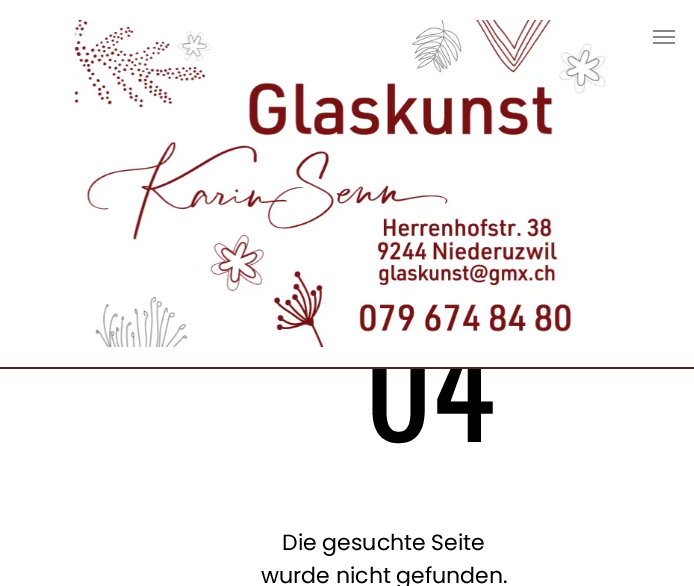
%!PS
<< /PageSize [694 586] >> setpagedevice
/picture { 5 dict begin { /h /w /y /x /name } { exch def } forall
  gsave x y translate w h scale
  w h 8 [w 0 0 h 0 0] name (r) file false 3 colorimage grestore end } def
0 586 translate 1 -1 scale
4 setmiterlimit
1 setgray
0 0 694 586 rectfill
/Oswald-Regular [130 0 0 -130 0 0] selectfont
0 setgray
365 442 moveto (04) show
1 setgray
372 335 110 32 rectfill
0.306 0.141 0.141 setrgbcolor
0 367 694 2 rectfill
(img1.rgb) 74 20 533 327 picture
0.533 setgray
653 30 22 2 rectfill
653 36 22 2 rectfill
653 42 22 2 rectfill
/Poppins-Regular [22 0 0 -22 0 0] selectfont
0 setgray
282 550 moveto (Die gesuchte Seite) show
261 583 moveto (wurde nicht gefunden.) show
showpage
